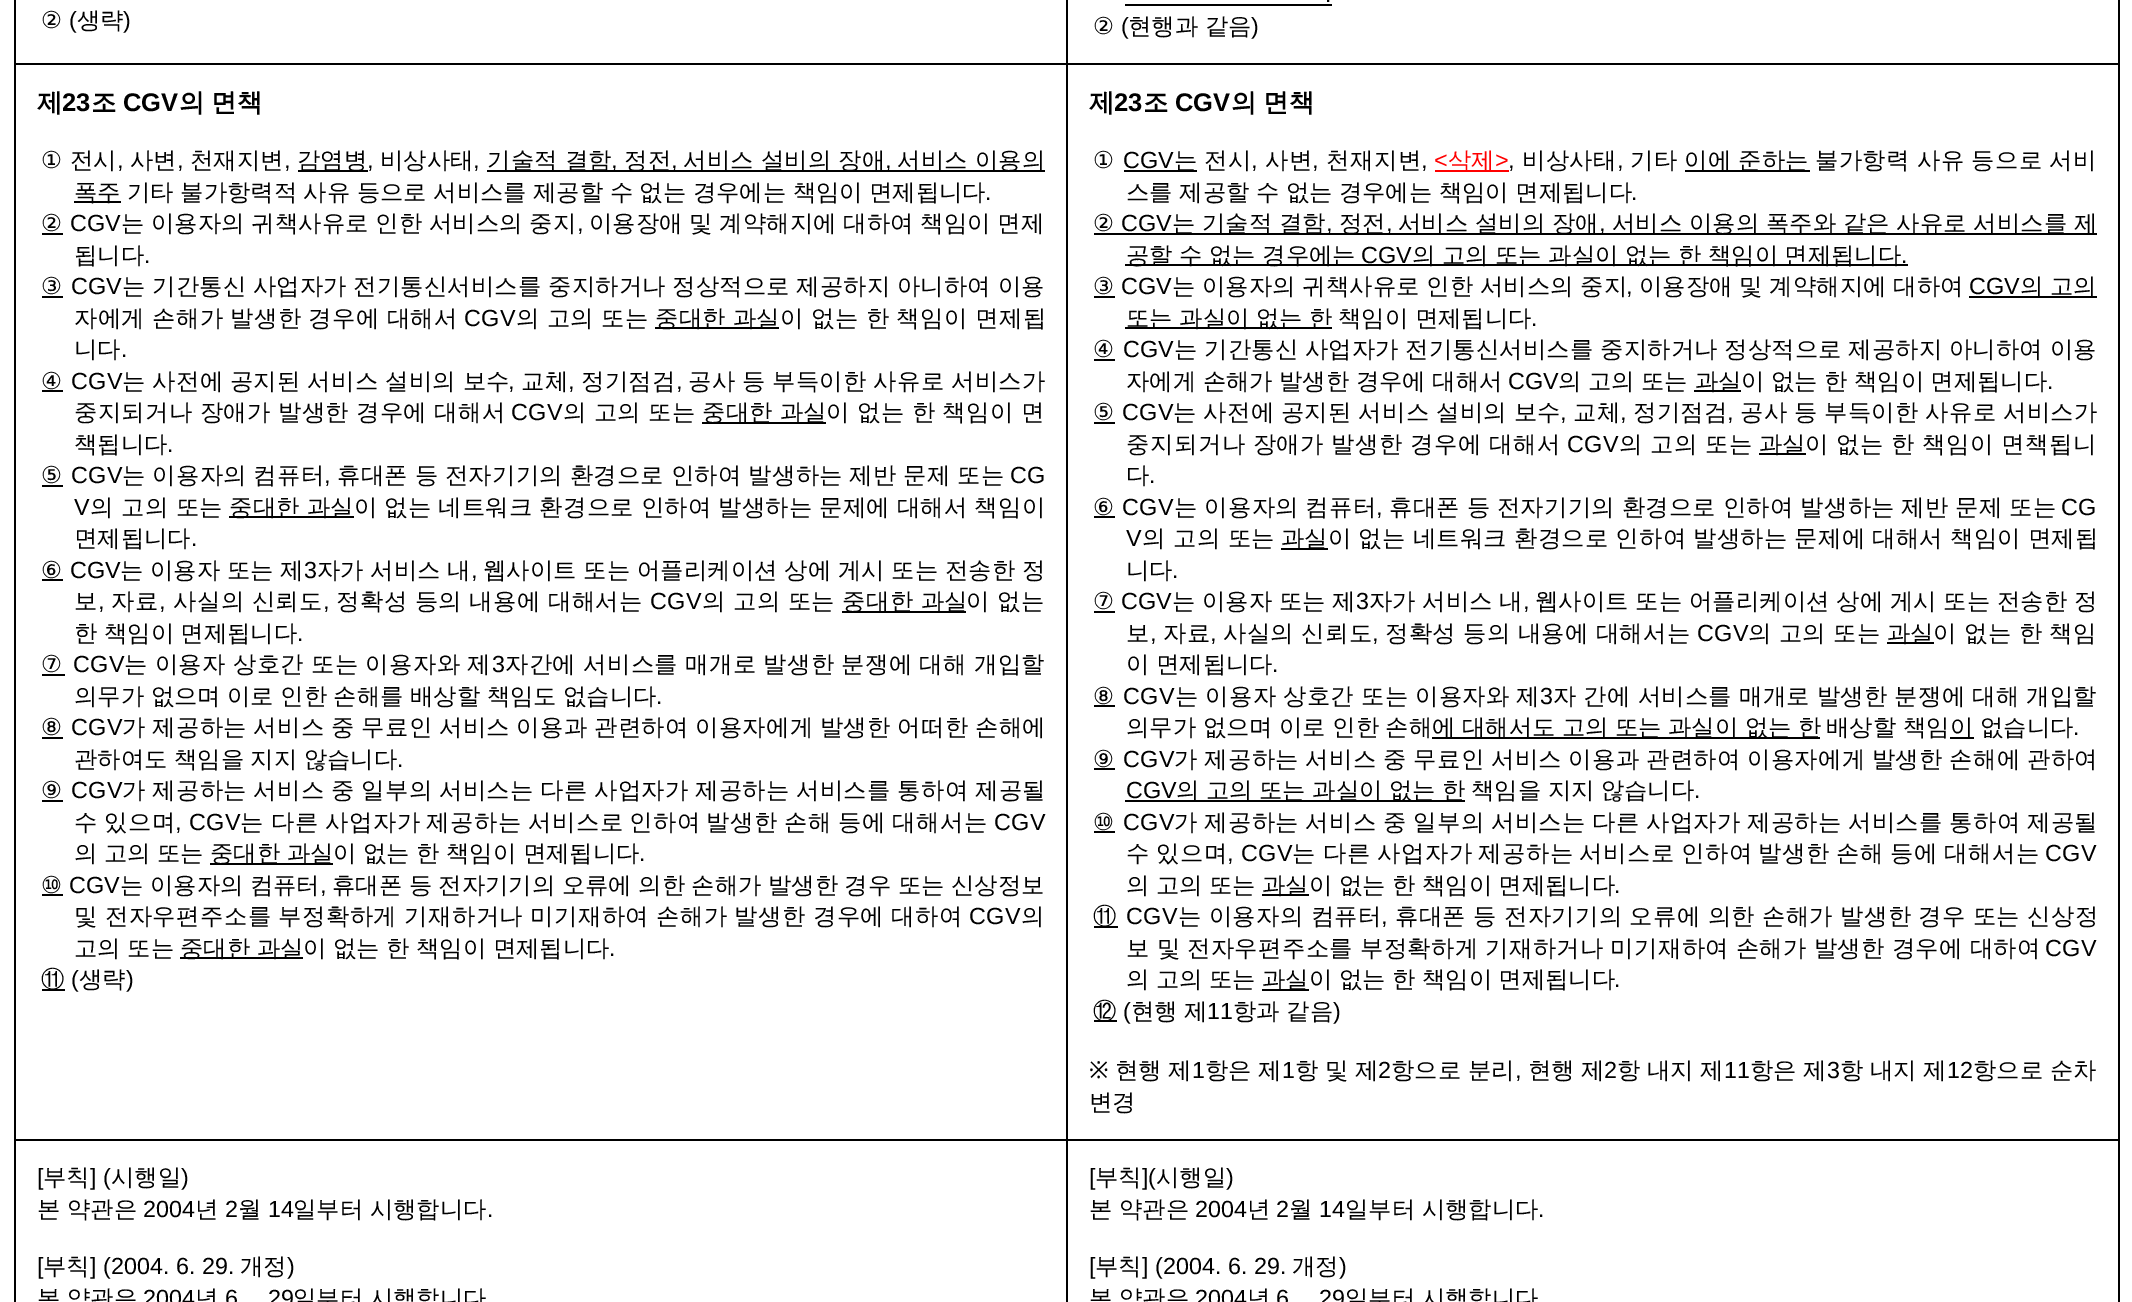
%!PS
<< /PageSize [2132 1302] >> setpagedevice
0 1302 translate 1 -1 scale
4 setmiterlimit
1 setgray
0 0 2132 1302 rectfill
0 setgray
1066 1139 2 163 rectfill
2118 0 2 1302 rectfill
1066 1139 1053 2 rectfill
1066 63 2 1078 rectfill
1066 63 1053 2 rectfill
1066 0 2 65 rectfill
14 1139 2 163 rectfill
14 1139 1054 2 rectfill
14 63 2 1078 rectfill
14 63 1054 2 rectfill
14 0 2 65 rectfill
/DejaVuSans-Regular [23.35 0 0 -23.35 0 0] selectfont
41 28 moveto (②) show
/LiberationSans-Regular [23.35 0 0 -23.35 0 0] selectfont
69 28 moveto (\() show
/WenQuanYiZenHei-Medium [23.35 0 0 -23.35 0 0] selectfont
77 28 moveto (생략) show
/LiberationSans-Regular [23.35 0 0 -23.35 0 0] selectfont
123 28 moveto (\)) show
1325 2 moveto (.) show
1125 4 207 2 rectfill
/DejaVuSans-Regular [23.35 0 0 -23.35 0 0] selectfont
1093 34 moveto (②) show
/LiberationSans-Regular [23.35 0 0 -23.35 0 0] selectfont
1121 34 moveto (\() show
/WenQuanYiZenHei-Medium [23.35 0 0 -23.35 0 0] selectfont
1128 34 moveto -0.5 0 32 (현행과 같음) widthshow
/LiberationSans-Regular [23.35 0 0 -23.35 0 0] selectfont
1251 34 moveto (\)) show
/WenQuanYiZenHei-Bold [25.5 0 0 -25.5 0 0] selectfont
37 111 moveto (제) show
/LiberationSans-Bold [25.5 0 0 -25.5 0 0] selectfont
62 111 moveto (23) show
/WenQuanYiZenHei-Bold [25.5 0 0 -25.5 0 0] selectfont
91 111 moveto (조) show
/LiberationSans-Bold [25.5 0 0 -25.5 0 0] selectfont
123 111 moveto (CGV) show
/WenQuanYiZenHei-Bold [25.5 0 0 -25.5 0 0] selectfont
179 111 moveto -1 0 32 (의 면책) widthshow
/DejaVuSans-Regular [23.35 0 0 -23.35 0 0] selectfont
41 168 moveto (①) show
/WenQuanYiZenHei-Medium [23.35 0 0 -23.35 0 0] selectfont
70 168 moveto (전시) show
/LiberationSans-Regular [23.35 0 0 -23.35 0 0] selectfont
117 168 moveto (,) show
/WenQuanYiZenHei-Medium [23.35 0 0 -23.35 0 0] selectfont
130 168 moveto (사변) show
/LiberationSans-Regular [23.35 0 0 -23.35 0 0] selectfont
177 168 moveto (,) show
/WenQuanYiZenHei-Medium [23.35 0 0 -23.35 0 0] selectfont
190 168 moveto (천재지변) show
/LiberationSans-Regular [23.35 0 0 -23.35 0 0] selectfont
284 168 moveto (,) show
298 170 70 2 rectfill
/WenQuanYiZenHei-Medium [23.35 0 0 -23.35 0 0] selectfont
297 168 moveto (감염병) show
/LiberationSans-Regular [23.35 0 0 -23.35 0 0] selectfont
367 168 moveto (,) show
/WenQuanYiZenHei-Medium [23.35 0 0 -23.35 0 0] selectfont
380 168 moveto (비상사태) show
/LiberationSans-Regular [23.35 0 0 -23.35 0 0] selectfont
473 168 moveto (,) show
487 170 558 2 rectfill
/WenQuanYiZenHei-Medium [23.35 0 0 -23.35 0 0] selectfont
487 168 moveto -0.5 0 32 0.25 0 (기술적 결함) awidthshow
/LiberationSans-Regular [23.35 0 0 -23.35 0 0] selectfont
611 168 moveto 0.25 0 (,) ashow
/WenQuanYiZenHei-Medium [23.35 0 0 -23.35 0 0] selectfont
624 168 moveto 0.25 0 (정전) ashow
/LiberationSans-Regular [23.35 0 0 -23.35 0 0] selectfont
671 168 moveto 0.25 0 (,) ashow
/WenQuanYiZenHei-Medium [23.35 0 0 -23.35 0 0] selectfont
683 168 moveto -0.5 0 32 0.25 0 (서비스 설비의 장애) awidthshow
/LiberationSans-Regular [23.35 0 0 -23.35 0 0] selectfont
885 168 moveto 0.25 0 (,) ashow
/WenQuanYiZenHei-Medium [23.35 0 0 -23.35 0 0] selectfont
897 168 moveto -0.5 0 32 0.25 0 (서비스 이용의) awidthshow
74 201 47 2 rectfill
74 200 moveto (폭주) show
127 200 moveto -0.5 0 32 (기타 불가항력적 사유 등으로 서비스를 제공할 수 없는 경우에는 책임이 면제됩니다) widthshow
/LiberationSans-Regular [23.35 0 0 -23.35 0 0] selectfont
985 200 moveto (.) show
/DejaVuSans-Regular [23.35 0 0 -23.35 0 0] selectfont
41 231 moveto (②) show
42 233 21 2 rectfill
/LiberationSans-Regular [23.35 0 0 -23.35 0 0] selectfont
70 231 moveto 0.1 0 (CGV) ashow
/WenQuanYiZenHei-Medium [23.35 0 0 -23.35 0 0] selectfont
121 231 moveto -0.5 0 32 0.1 0 (는 이용자의 귀책사유로 인한 서비스의 중지) awidthshow
/LiberationSans-Regular [23.35 0 0 -23.35 0 0] selectfont
577 231 moveto 0.1 0 (,) ashow
/WenQuanYiZenHei-Medium [23.35 0 0 -23.35 0 0] selectfont
589 231 moveto -0.5 0 32 0.1 0 (이용장애 및 계약해지에 대하여 책임이 면제) awidthshow
74 263 moveto (됩니다) show
/LiberationSans-Regular [23.35 0 0 -23.35 0 0] selectfont
144 263 moveto (.) show
/DejaVuSans-Regular [23.35 0 0 -23.35 0 0] selectfont
41 294 moveto (③) show
42 296 21 2 rectfill
/LiberationSans-Regular [23.35 0 0 -23.35 0 0] selectfont
71 294 moveto 0.15 0 (CGV) ashow
/WenQuanYiZenHei-Medium [23.35 0 0 -23.35 0 0] selectfont
122 294 moveto -0.5 0 32 0.15 0 (는 기간통신 사업자가 전기통신서비스를 중지하거나 정상적으로 제공하지 아니하여 이용) awidthshow
74 326 moveto -0.5 0 32 0.4 0 (자에게 손해가 발생한 경우에 대해서) awidthshow
/LiberationSans-Regular [23.35 0 0 -23.35 0 0] selectfont
464 326 moveto 0.4 0 (CGV) ashow
/WenQuanYiZenHei-Medium [23.35 0 0 -23.35 0 0] selectfont
516 326 moveto -0.5 0 32 0.4 0 (의 고의 또는) awidthshow
655 327 124 2 rectfill
655 326 moveto -0.5 0 32 0.25 0 (중대한 과실) awidthshow
780 326 moveto -0.5 0 32 0.5 0 (이 없는 한 책임이 면제됩) awidthshow
74 357 moveto (니다) show
/LiberationSans-Regular [23.35 0 0 -23.35 0 0] selectfont
121 357 moveto (.) show
/DejaVuSans-Regular [23.35 0 0 -23.35 0 0] selectfont
41 389 moveto (④) show
42 390 21 2 rectfill
/LiberationSans-Regular [23.35 0 0 -23.35 0 0] selectfont
71 389 moveto 0.25 0 (CGV) ashow
/WenQuanYiZenHei-Medium [23.35 0 0 -23.35 0 0] selectfont
122 389 moveto -0.5 0 32 0.25 0 (는 사전에 공지된 서비스 설비의 보수) awidthshow
/LiberationSans-Regular [23.35 0 0 -23.35 0 0] selectfont
508 389 moveto 0.25 0 (,) ashow
/WenQuanYiZenHei-Medium [23.35 0 0 -23.35 0 0] selectfont
521 389 moveto 0.25 0 (교체) ashow
/LiberationSans-Regular [23.35 0 0 -23.35 0 0] selectfont
568 389 moveto 0.25 0 (,) ashow
/WenQuanYiZenHei-Medium [23.35 0 0 -23.35 0 0] selectfont
581 389 moveto 0.25 0 (정기점검) ashow
/LiberationSans-Regular [23.35 0 0 -23.35 0 0] selectfont
676 389 moveto 0.25 0 (,) ashow
/WenQuanYiZenHei-Medium [23.35 0 0 -23.35 0 0] selectfont
688 389 moveto -0.5 0 32 0.25 0 (공사 등 부득이한 사유로 서비스가) awidthshow
74 420 moveto -0.5 0 32 0.4 0 (중지되거나 장애가 발생한 경우에 대해서) awidthshow
/LiberationSans-Regular [23.35 0 0 -23.35 0 0] selectfont
511 420 moveto 0.4 0 (CGV) ashow
/WenQuanYiZenHei-Medium [23.35 0 0 -23.35 0 0] selectfont
563 420 moveto -0.5 0 32 0.4 0 (의 고의 또는) awidthshow
702 422 124 2 rectfill
702 420 moveto -0.5 0 32 0.25 0 (중대한 과실) awidthshow
826 420 moveto -0.5 0 32 0.5 0 (이 없는 한 책임이 면) awidthshow
74 452 moveto (책됩니다) show
/LiberationSans-Regular [23.35 0 0 -23.35 0 0] selectfont
167 452 moveto (.) show
/DejaVuSans-Regular [23.35 0 0 -23.35 0 0] selectfont
41 483 moveto (⑤) show
42 485 21 2 rectfill
/LiberationSans-Regular [23.35 0 0 -23.35 0 0] selectfont
71 483 moveto 0.25 0 (CGV) ashow
/WenQuanYiZenHei-Medium [23.35 0 0 -23.35 0 0] selectfont
122 483 moveto -0.5 0 32 0.25 0 (는 이용자의 컴퓨터) awidthshow
/LiberationSans-Regular [23.35 0 0 -23.35 0 0] selectfont
324 483 moveto 0.25 0 (,) ashow
/WenQuanYiZenHei-Medium [23.35 0 0 -23.35 0 0] selectfont
337 483 moveto -0.5 0 32 0.25 0 (휴대폰 등 전자기기의 환경으로 인하여 발생하는 제반 문제 또는) awidthshow
/LiberationSans-Regular [23.35 0 0 -23.35 0 0] selectfont
1010 483 moveto 0.25 0 (CG) ashow
74 515 moveto 0.5 0 (V) ashow
/WenQuanYiZenHei-Medium [23.35 0 0 -23.35 0 0] selectfont
90 515 moveto -0.5 0 32 0.5 0 (의 고의 또는) awidthshow
229 516 125 2 rectfill
229 515 moveto -0.5 0 32 0.25 0 (중대한 과실) awidthshow
354 515 moveto -0.5 0 32 0.25 0 (이 없는 네트워크 환경으로 인하여 발생하는 문제에 대해서 책임이) awidthshow
74 546 moveto (면제됩니다) show
/LiberationSans-Regular [23.35 0 0 -23.35 0 0] selectfont
191 546 moveto (.) show
/DejaVuSans-Regular [23.35 0 0 -23.35 0 0] selectfont
41 578 moveto (⑥) show
42 579 21 2 rectfill
/LiberationSans-Regular [23.35 0 0 -23.35 0 0] selectfont
70 578 moveto 0.1 0 (CGV) ashow
/WenQuanYiZenHei-Medium [23.35 0 0 -23.35 0 0] selectfont
120 578 moveto -0.5 0 32 0.1 0 (는 이용자 또는 제) awidthshow
/LiberationSans-Regular [23.35 0 0 -23.35 0 0] selectfont
304 578 moveto 0.1 0 (3) ashow
/WenQuanYiZenHei-Medium [23.35 0 0 -23.35 0 0] selectfont
317 578 moveto -0.5 0 32 0.1 0 (자가 서비스 내) awidthshow
/LiberationSans-Regular [23.35 0 0 -23.35 0 0] selectfont
471 578 moveto 0.1 0 (,) ashow
/WenQuanYiZenHei-Medium [23.35 0 0 -23.35 0 0] selectfont
483 578 moveto -0.5 0 32 0.1 0 (웹사이트 또는 어플리케이션 상에 게시 또는 전송한 정) awidthshow
74 609 moveto 0.5 0 (보) ashow
/LiberationSans-Regular [23.35 0 0 -23.35 0 0] selectfont
98 609 moveto 0.5 0 (,) ashow
/WenQuanYiZenHei-Medium [23.35 0 0 -23.35 0 0] selectfont
111 609 moveto 0.5 0 (자료) ashow
/LiberationSans-Regular [23.35 0 0 -23.35 0 0] selectfont
159 609 moveto 0.5 0 (,) ashow
/WenQuanYiZenHei-Medium [23.35 0 0 -23.35 0 0] selectfont
173 609 moveto -0.5 0 32 0.5 0 (사실의 신뢰도) awidthshow
/LiberationSans-Regular [23.35 0 0 -23.35 0 0] selectfont
323 609 moveto 0.5 0 (,) ashow
/WenQuanYiZenHei-Medium [23.35 0 0 -23.35 0 0] selectfont
336 609 moveto -0.5 0 32 0.5 0 (정확성 등의 내용에 대해서는) awidthshow
/LiberationSans-Regular [23.35 0 0 -23.35 0 0] selectfont
650 609 moveto 0.5 0 (CGV) ashow
/WenQuanYiZenHei-Medium [23.35 0 0 -23.35 0 0] selectfont
702 609 moveto -0.5 0 32 0.5 0 (의 고의 또는) awidthshow
842 611 124 2 rectfill
842 609 moveto -0.5 0 32 0.5 0 (중대한 과실) awidthshow
966 609 moveto -0.5 0 32 0.5 0 (이 없는) awidthshow
74 641 moveto -0.5 0 32 (한 책임이 면제됩니다) widthshow
/LiberationSans-Regular [23.35 0 0 -23.35 0 0] selectfont
297 641 moveto (.) show
/DejaVuSans-Regular [23.35 0 0 -23.35 0 0] selectfont
41 672 moveto (⑦) show
42 674 23 2 rectfill
/LiberationSans-Regular [23.35 0 0 -23.35 0 0] selectfont
73 672 moveto 0.4 0 (CGV) ashow
/WenQuanYiZenHei-Medium [23.35 0 0 -23.35 0 0] selectfont
124 672 moveto -0.5 0 32 0.4 0 (는 이용자 상호간 또는 이용자와 제) awidthshow
/LiberationSans-Regular [23.35 0 0 -23.35 0 0] selectfont
492 672 moveto 0.4 0 (3) ashow
/WenQuanYiZenHei-Medium [23.35 0 0 -23.35 0 0] selectfont
505 672 moveto -0.5 0 32 0.4 0 (자간에 서비스를 매개로 발생한 분쟁에 대해 개입할) awidthshow
74 704 moveto -0.5 0 32 (의무가 없으며 이로 인한 손해를 배상할 책임도 없습니다) widthshow
/LiberationSans-Regular [23.35 0 0 -23.35 0 0] selectfont
656 704 moveto (.) show
/DejaVuSans-Regular [23.35 0 0 -23.35 0 0] selectfont
41 735 moveto (⑧) show
42 737 21 2 rectfill
/LiberationSans-Regular [23.35 0 0 -23.35 0 0] selectfont
71 735 moveto 0.25 0 (CGV) ashow
/WenQuanYiZenHei-Medium [23.35 0 0 -23.35 0 0] selectfont
122 735 moveto -0.5 0 32 0.25 0 (가 제공하는 서비스 중 무료인 서비스 이용과 관련하여 이용자에게 발생한 어떠한 손해에) awidthshow
74 767 moveto -0.5 0 32 (관하여도 책임을 지지 않습니다) widthshow
/LiberationSans-Regular [23.35 0 0 -23.35 0 0] selectfont
397 767 moveto (.) show
/DejaVuSans-Regular [23.35 0 0 -23.35 0 0] selectfont
41 798 moveto (⑨) show
42 800 21 2 rectfill
/LiberationSans-Regular [23.35 0 0 -23.35 0 0] selectfont
71 798 moveto 0.25 0 (CGV) ashow
/WenQuanYiZenHei-Medium [23.35 0 0 -23.35 0 0] selectfont
122 798 moveto -0.5 0 32 0.25 0 (가 제공하는 서비스 중 일부의 서비스는 다른 사업자가 제공하는 서비스를 통하여 제공될) awidthshow
74 830 moveto 0.5 0 (수) ashow
104 830 moveto 0.5 0 (있으며) ashow
/LiberationSans-Regular [23.35 0 0 -23.35 0 0] selectfont
175 830 moveto 0.5 0 (, CGV) ashow
/WenQuanYiZenHei-Medium [23.35 0 0 -23.35 0 0] selectfont
240 830 moveto 0.5 0 (는) ashow
271 830 moveto 0.5 0 (다른) ashow
325 830 moveto 0.5 0 (사업자가) ashow
426 830 moveto 0.5 0 (제공하는) ashow
528 830 moveto 0.5 0 (서비스로) ashow
629 830 moveto 0.5 0 (인하여) ashow
706 830 moveto 0.5 0 (발생한) ashow
784 830 moveto 0.5 0 (손해) ashow
838 830 moveto 0.5 0 (등에) ashow
892 830 moveto 0.5 0 (대해서는) ashow
/LiberationSans-Regular [23.35 0 0 -23.35 0 0] selectfont
994 830 moveto 0.5 0 (CGV) ashow
/WenQuanYiZenHei-Medium [23.35 0 0 -23.35 0 0] selectfont
74 861 moveto -0.5 0 32 (의 고의 또는) widthshow
210 863 123 2 rectfill
210 861 moveto -0.5 0 32 (중대한 과실이 없는 한 책임이 면제됩니다) widthshow
/LiberationSans-Regular [23.35 0 0 -23.35 0 0] selectfont
639 861 moveto (.) show
/DejaVuSans-Regular [23.35 0 0 -23.35 0 0] selectfont
41 893 moveto (⑩) show
42 894 21 2 rectfill
/LiberationSans-Regular [23.35 0 0 -23.35 0 0] selectfont
69 893 moveto (CGV) show
/WenQuanYiZenHei-Medium [23.35 0 0 -23.35 0 0] selectfont
120 893 moveto -0.5 0 32 (는 이용자의 컴퓨터) widthshow
/LiberationSans-Regular [23.35 0 0 -23.35 0 0] selectfont
320 893 moveto (,) show
/WenQuanYiZenHei-Medium [23.35 0 0 -23.35 0 0] selectfont
332 893 moveto -0.5 0 32 (휴대폰 등 전자기기의 오류에 의한 손해가 발생한 경우 또는 신상정보) widthshow
74 924 moveto -0.5 0 32 0.45 0 (및 전자우편주소를 부정확하게 기재하거나 미기재하여 손해가 발생한 경우에 대하여) awidthshow
/LiberationSans-Regular [23.35 0 0 -23.35 0 0] selectfont
969 924 moveto 0.45 0 (CGV) ashow
/WenQuanYiZenHei-Medium [23.35 0 0 -23.35 0 0] selectfont
1021 924 moveto 0.45 0 (의) ashow
74 956 moveto -0.5 0 32 (고의 또는) widthshow
180 957 123 2 rectfill
180 956 moveto -0.5 0 32 (중대한 과실이 없는 한 책임이 면제됩니다) widthshow
/LiberationSans-Regular [23.35 0 0 -23.35 0 0] selectfont
609 956 moveto (.) show
42 989 23 2 rectfill
/WenQuanYiZenHei-Medium [23.35 0 0 -23.35 0 0] selectfont
41 987 moveto (⑪) show
/LiberationSans-Regular [23.35 0 0 -23.35 0 0] selectfont
71 987 moveto (\() show
/WenQuanYiZenHei-Medium [23.35 0 0 -23.35 0 0] selectfont
79 987 moveto (생략) show
/LiberationSans-Regular [23.35 0 0 -23.35 0 0] selectfont
126 987 moveto (\)) show
/WenQuanYiZenHei-Bold [25.5 0 0 -25.5 0 0] selectfont
1089 111 moveto (제) show
/LiberationSans-Bold [25.5 0 0 -25.5 0 0] selectfont
1114 111 moveto (23) show
/WenQuanYiZenHei-Bold [25.5 0 0 -25.5 0 0] selectfont
1143 111 moveto (조) show
/LiberationSans-Bold [25.5 0 0 -25.5 0 0] selectfont
1175 111 moveto (CGV) show
/WenQuanYiZenHei-Bold [25.5 0 0 -25.5 0 0] selectfont
1231 111 moveto -1 0 32 (의 면책) widthshow
/DejaVuSans-Regular [23.35 0 0 -23.35 0 0] selectfont
1093 168 moveto (①) show
/LiberationSans-Regular [23.35 0 0 -23.35 0 0] selectfont
1123 168 moveto (CGV) show
1124 170 73 2 rectfill
/WenQuanYiZenHei-Medium [23.35 0 0 -23.35 0 0] selectfont
1174 168 moveto (는) show
1204 168 moveto 0.5 0 (전시) ashow
1265 168 moveto 0.5 0 (사변) ashow
1326 168 moveto 0.5 0 (천재지변) ashow
/LiberationSans-Regular [23.35 0 0 -23.35 0 0] selectfont
1 0 0 setrgbcolor
1434 168 moveto (<) show
1435 170 74 2 rectfill
/WenQuanYiZenHei-Medium [23.35 0 0 -23.35 0 0] selectfont
1448 168 moveto (삭제) show
/LiberationSans-Regular [23.35 0 0 -23.35 0 0] selectfont
1495 168 moveto (>) show
/WenQuanYiZenHei-Medium [23.35 0 0 -23.35 0 0] selectfont
0 setgray
1522 168 moveto 0.4 0 (비상사태) ashow
1630 168 moveto 0.4 0 (기타) ashow
1685 170 125 2 rectfill
1684 168 moveto -0.5 0 32 0.25 0 (이에 준하는) awidthshow
1815 168 moveto -0.5 0 32 0.4 0 (불가항력 사유 등으로 서비) awidthshow
/LiberationSans-Regular [23.35 0 0 -23.35 0 0] selectfont
1251 168 moveto 0.5 0 (,) ashow
1312 168 moveto 0.5 0 (,) ashow
1421 168 moveto 0.5 0 (,) ashow
1508 168 moveto 0.4 0 (,) ashow
1617 168 moveto 0.4 0 (,) ashow
/WenQuanYiZenHei-Medium [23.35 0 0 -23.35 0 0] selectfont
1126 200 moveto -0.5 0 32 (스를 제공할 수 없는 경우에는 책임이 면제됩니다) widthshow
/LiberationSans-Regular [23.35 0 0 -23.35 0 0] selectfont
1631 200 moveto (.) show
/DejaVuSans-Regular [23.35 0 0 -23.35 0 0] selectfont
1093 231 moveto (②) show
1094 233 1003 2 rectfill
/LiberationSans-Regular [23.35 0 0 -23.35 0 0] selectfont
1121 231 moveto 0.1 0 (CGV) ashow
/WenQuanYiZenHei-Medium [23.35 0 0 -23.35 0 0] selectfont
1172 231 moveto -0.5 0 32 0.1 0 (는 기술적 결함) awidthshow
/LiberationSans-Regular [23.35 0 0 -23.35 0 0] selectfont
1326 231 moveto 0.1 0 (,) ashow
/WenQuanYiZenHei-Medium [23.35 0 0 -23.35 0 0] selectfont
1339 231 moveto 0.1 0 (정전) ashow
/LiberationSans-Regular [23.35 0 0 -23.35 0 0] selectfont
1386 231 moveto 0.1 0 (,) ashow
/WenQuanYiZenHei-Medium [23.35 0 0 -23.35 0 0] selectfont
1398 231 moveto -0.5 0 32 0.1 0 (서비스 설비의 장애) awidthshow
/LiberationSans-Regular [23.35 0 0 -23.35 0 0] selectfont
1599 231 moveto 0.1 0 (,) ashow
/WenQuanYiZenHei-Medium [23.35 0 0 -23.35 0 0] selectfont
1612 231 moveto -0.5 0 32 0.1 0 (서비스 이용의 폭주와 같은 사유로 서비스를 제) awidthshow
1125 264 783 2 rectfill
1126 263 moveto -0.5 0 32 (공할 수 없는 경우에는) widthshow
/LiberationSans-Regular [23.35 0 0 -23.35 0 0] selectfont
1361 263 moveto (CGV) show
/WenQuanYiZenHei-Medium [23.35 0 0 -23.35 0 0] selectfont
1412 263 moveto -0.5 0 32 (의 고의 또는 과실이 없는 한 책임이 면제됩니다) widthshow
/LiberationSans-Regular [23.35 0 0 -23.35 0 0] selectfont
1901 263 moveto (.) show
/DejaVuSans-Regular [23.35 0 0 -23.35 0 0] selectfont
1093 294 moveto (③) show
1094 296 21 2 rectfill
/LiberationSans-Regular [23.35 0 0 -23.35 0 0] selectfont
1121 294 moveto 0.1 0 (CGV) ashow
/WenQuanYiZenHei-Medium [23.35 0 0 -23.35 0 0] selectfont
1172 294 moveto -0.5 0 32 0.1 0 (는 이용자의 귀책사유로 인한 서비스의 중지) awidthshow
/LiberationSans-Regular [23.35 0 0 -23.35 0 0] selectfont
1626 294 moveto 0.1 0 (,) ashow
/WenQuanYiZenHei-Medium [23.35 0 0 -23.35 0 0] selectfont
1639 294 moveto -0.5 0 32 0.1 0 (이용장애 및 계약해지에 대하여) awidthshow
/LiberationSans-Regular [23.35 0 0 -23.35 0 0] selectfont
1969 294 moveto (CGV) show
1969 296 128 2 rectfill
/WenQuanYiZenHei-Medium [23.35 0 0 -23.35 0 0] selectfont
2020 294 moveto -0.5 0 32 (의 고의) widthshow
1125 327 207 2 rectfill
1126 326 moveto -0.5 0 32 (또는 과실이 없는 한) widthshow
1338 326 moveto -0.5 0 32 (책임이 면제됩니다) widthshow
/LiberationSans-Regular [23.35 0 0 -23.35 0 0] selectfont
1531 326 moveto (.) show
/DejaVuSans-Regular [23.35 0 0 -23.35 0 0] selectfont
1093 357 moveto (④) show
1094 359 21 2 rectfill
/LiberationSans-Regular [23.35 0 0 -23.35 0 0] selectfont
1123 357 moveto 0.15 0 (CGV) ashow
/WenQuanYiZenHei-Medium [23.35 0 0 -23.35 0 0] selectfont
1174 357 moveto -0.5 0 32 0.15 0 (는 기간통신 사업자가 전기통신서비스를 중지하거나 정상적으로 제공하지 아니하여 이용) awidthshow
1126 389 moveto -0.5 0 32 (자에게 손해가 발생한 경우에 대해서) widthshow
/LiberationSans-Regular [23.35 0 0 -23.35 0 0] selectfont
1508 389 moveto (CGV) show
/WenQuanYiZenHei-Medium [23.35 0 0 -23.35 0 0] selectfont
1558 389 moveto -0.5 0 32 (의 고의 또는) widthshow
1694 390 47 2 rectfill
1695 389 moveto (과실) show
1741 389 moveto -0.5 0 32 (이 없는 한 책임이 면제됩니다) widthshow
/LiberationSans-Regular [23.35 0 0 -23.35 0 0] selectfont
2047 389 moveto (.) show
/DejaVuSans-Regular [23.35 0 0 -23.35 0 0] selectfont
1093 420 moveto (⑤) show
1094 422 21 2 rectfill
/LiberationSans-Regular [23.35 0 0 -23.35 0 0] selectfont
1122 420 moveto 0.25 0 (CGV) ashow
/WenQuanYiZenHei-Medium [23.35 0 0 -23.35 0 0] selectfont
1173 420 moveto -0.5 0 32 0.25 0 (는 사전에 공지된 서비스 설비의 보수) awidthshow
/LiberationSans-Regular [23.35 0 0 -23.35 0 0] selectfont
1560 420 moveto 0.25 0 (,) ashow
/WenQuanYiZenHei-Medium [23.35 0 0 -23.35 0 0] selectfont
1573 420 moveto 0.25 0 (교체) ashow
/LiberationSans-Regular [23.35 0 0 -23.35 0 0] selectfont
1620 420 moveto 0.25 0 (,) ashow
/WenQuanYiZenHei-Medium [23.35 0 0 -23.35 0 0] selectfont
1633 420 moveto 0.25 0 (정기점검) ashow
/LiberationSans-Regular [23.35 0 0 -23.35 0 0] selectfont
1727 420 moveto 0.25 0 (,) ashow
/WenQuanYiZenHei-Medium [23.35 0 0 -23.35 0 0] selectfont
1740 420 moveto -0.5 0 32 0.25 0 (공사 등 부득이한 사유로 서비스가) awidthshow
1126 452 moveto -0.5 0 32 0.55 0 (중지되거나 장애가 발생한 경우에 대해서) awidthshow
/LiberationSans-Regular [23.35 0 0 -23.35 0 0] selectfont
1567 452 moveto 0.55 0 (CGV) ashow
/WenQuanYiZenHei-Medium [23.35 0 0 -23.35 0 0] selectfont
1619 452 moveto -0.5 0 32 0.55 0 (의 고의 또는) awidthshow
1759 453 47 2 rectfill
1759 452 moveto (과실) show
1805 452 moveto -0.5 0 32 0.6 0 (이 없는 한 책임이 면책됩니) awidthshow
1126 483 moveto (다) show
/LiberationSans-Regular [23.35 0 0 -23.35 0 0] selectfont
1149 483 moveto (.) show
/DejaVuSans-Regular [23.35 0 0 -23.35 0 0] selectfont
1093 515 moveto (⑥) show
1094 516 21 2 rectfill
/LiberationSans-Regular [23.35 0 0 -23.35 0 0] selectfont
1122 515 moveto 0.25 0 (CGV) ashow
/WenQuanYiZenHei-Medium [23.35 0 0 -23.35 0 0] selectfont
1174 515 moveto -0.5 0 32 0.25 0 (는 이용자의 컴퓨터) awidthshow
/LiberationSans-Regular [23.35 0 0 -23.35 0 0] selectfont
1376 515 moveto 0.25 0 (,) ashow
/WenQuanYiZenHei-Medium [23.35 0 0 -23.35 0 0] selectfont
1389 515 moveto -0.5 0 32 0.25 0 (휴대폰 등 전자기기의 환경으로 인하여 발생하는 제반 문제 또는) awidthshow
/LiberationSans-Regular [23.35 0 0 -23.35 0 0] selectfont
2061 515 moveto 0.25 0 (CG) ashow
1126 546 moveto 0.5 0 (V) ashow
/WenQuanYiZenHei-Medium [23.35 0 0 -23.35 0 0] selectfont
1142 546 moveto -0.5 0 32 0.5 0 (의 고의 또는) awidthshow
1281 548 47 2 rectfill
1281 546 moveto (과실) show
1328 546 moveto -0.5 0 32 0.3 0 (이 없는 네트워크 환경으로 인하여 발생하는 문제에 대해서 책임이 면제됩) awidthshow
1126 578 moveto (니다) show
/LiberationSans-Regular [23.35 0 0 -23.35 0 0] selectfont
1172 578 moveto (.) show
/DejaVuSans-Regular [23.35 0 0 -23.35 0 0] selectfont
1093 609 moveto (⑦) show
1094 611 21 2 rectfill
/LiberationSans-Regular [23.35 0 0 -23.35 0 0] selectfont
1121 609 moveto 0.1 0 (CGV) ashow
/WenQuanYiZenHei-Medium [23.35 0 0 -23.35 0 0] selectfont
1172 609 moveto -0.5 0 32 0.1 0 (는 이용자 또는 제) awidthshow
/LiberationSans-Regular [23.35 0 0 -23.35 0 0] selectfont
1356 609 moveto 0.1 0 (3) ashow
/WenQuanYiZenHei-Medium [23.35 0 0 -23.35 0 0] selectfont
1369 609 moveto -0.5 0 32 0.1 0 (자가 서비스 내) awidthshow
/LiberationSans-Regular [23.35 0 0 -23.35 0 0] selectfont
1523 609 moveto 0.1 0 (,) ashow
/WenQuanYiZenHei-Medium [23.35 0 0 -23.35 0 0] selectfont
1535 609 moveto -0.5 0 32 0.1 0 (웹사이트 또는 어플리케이션 상에 게시 또는 전송한 정) awidthshow
1126 641 moveto 0.4 0 (보) ashow
/LiberationSans-Regular [23.35 0 0 -23.35 0 0] selectfont
1150 641 moveto 0.4 0 (,) ashow
/WenQuanYiZenHei-Medium [23.35 0 0 -23.35 0 0] selectfont
1163 641 moveto 0.4 0 (자료) ashow
/LiberationSans-Regular [23.35 0 0 -23.35 0 0] selectfont
1210 641 moveto 0.4 0 (,) ashow
/WenQuanYiZenHei-Medium [23.35 0 0 -23.35 0 0] selectfont
1223 641 moveto -0.5 0 32 0.4 0 (사실의 신뢰도) awidthshow
/LiberationSans-Regular [23.35 0 0 -23.35 0 0] selectfont
1372 641 moveto 0.4 0 (,) ashow
/WenQuanYiZenHei-Medium [23.35 0 0 -23.35 0 0] selectfont
1385 641 moveto -0.5 0 32 0.4 0 (정확성 등의 내용에 대해서는) awidthshow
/LiberationSans-Regular [23.35 0 0 -23.35 0 0] selectfont
1697 641 moveto 0.4 0 (CGV) ashow
/WenQuanYiZenHei-Medium [23.35 0 0 -23.35 0 0] selectfont
1748 641 moveto -0.5 0 32 0.4 0 (의 고의 또는) awidthshow
1887 642 47 2 rectfill
1887 641 moveto (과실) show
1933 641 moveto -0.5 0 32 0.5 0 (이 없는 한 책임) awidthshow
1126 672 moveto -0.5 0 32 (이 면제됩니다) widthshow
/LiberationSans-Regular [23.35 0 0 -23.35 0 0] selectfont
1272 672 moveto (.) show
/DejaVuSans-Regular [23.35 0 0 -23.35 0 0] selectfont
1093 704 moveto (⑧) show
1094 705 21 2 rectfill
/LiberationSans-Regular [23.35 0 0 -23.35 0 0] selectfont
1123 704 moveto 0.3 0 (CGV) ashow
/WenQuanYiZenHei-Medium [23.35 0 0 -23.35 0 0] selectfont
1175 704 moveto -0.5 0 32 0.3 0 (는 이용자 상호간 또는 이용자와 제) awidthshow
/LiberationSans-Regular [23.35 0 0 -23.35 0 0] selectfont
1540 704 moveto 0.3 0 (3) ashow
/WenQuanYiZenHei-Medium [23.35 0 0 -23.35 0 0] selectfont
1553 704 moveto -0.5 0 32 0.3 0 (자 간에 서비스를 매개로 발생한 분쟁에 대해 개입할) awidthshow
1126 735 moveto -0.5 0 32 (의무가 없으며 이로 인한 손해) widthshow
1432 737 388 2 rectfill
1432 735 moveto -0.5 0 32 (에 대해서도 고의 또는 과실이 없는 한) widthshow
1826 735 moveto -0.5 0 32 (배상할 책임) widthshow
1950 737 24 2 rectfill
1950 735 moveto (이) show
1980 735 moveto (없습니다) show
/LiberationSans-Regular [23.35 0 0 -23.35 0 0] selectfont
2073 735 moveto (.) show
/DejaVuSans-Regular [23.35 0 0 -23.35 0 0] selectfont
1093 767 moveto (⑨) show
1094 768 21 2 rectfill
/LiberationSans-Regular [23.35 0 0 -23.35 0 0] selectfont
1123 767 moveto 0.25 0 (CGV) ashow
/WenQuanYiZenHei-Medium [23.35 0 0 -23.35 0 0] selectfont
1174 767 moveto -0.5 0 32 0.25 0 (가 제공하는 서비스 중 무료인 서비스 이용과 관련하여 이용자에게 발생한 손해에 관하여) awidthshow
/LiberationSans-Regular [23.35 0 0 -23.35 0 0] selectfont
1126 798 moveto (CGV) show
1125 800 340 2 rectfill
/WenQuanYiZenHei-Medium [23.35 0 0 -23.35 0 0] selectfont
1176 798 moveto -0.5 0 32 (의 고의 또는 과실이 없는 한) widthshow
1471 798 moveto -0.5 0 32 (책임을 지지 않습니다) widthshow
/LiberationSans-Regular [23.35 0 0 -23.35 0 0] selectfont
1694 798 moveto (.) show
/DejaVuSans-Regular [23.35 0 0 -23.35 0 0] selectfont
1093 830 moveto (⑩) show
1094 831 21 2 rectfill
/LiberationSans-Regular [23.35 0 0 -23.35 0 0] selectfont
1123 830 moveto 0.25 0 (CGV) ashow
/WenQuanYiZenHei-Medium [23.35 0 0 -23.35 0 0] selectfont
1174 830 moveto -0.5 0 32 0.25 0 (가 제공하는 서비스 중 일부의 서비스는 다른 사업자가 제공하는 서비스를 통하여 제공될) awidthshow
1126 861 moveto 0.5 0 (수) ashow
1156 861 moveto 0.5 0 (있으며) ashow
/LiberationSans-Regular [23.35 0 0 -23.35 0 0] selectfont
1227 861 moveto 0.5 0 (, CGV) ashow
/WenQuanYiZenHei-Medium [23.35 0 0 -23.35 0 0] selectfont
1292 861 moveto 0.5 0 (는) ashow
1323 861 moveto 0.5 0 (다른) ashow
1377 861 moveto 0.5 0 (사업자가) ashow
1478 861 moveto 0.5 0 (제공하는) ashow
1579 861 moveto 0.5 0 (서비스로) ashow
1681 861 moveto 0.5 0 (인하여) ashow
1758 861 moveto 0.5 0 (발생한) ashow
1836 861 moveto 0.5 0 (손해) ashow
1890 861 moveto 0.5 0 (등에) ashow
1944 861 moveto 0.5 0 (대해서는) ashow
/LiberationSans-Regular [23.35 0 0 -23.35 0 0] selectfont
2045 861 moveto 0.5 0 (CGV) ashow
/WenQuanYiZenHei-Medium [23.35 0 0 -23.35 0 0] selectfont
1126 893 moveto -0.5 0 32 (의 고의 또는) widthshow
1262 894 47 2 rectfill
1262 893 moveto (과실) show
1309 893 moveto -0.5 0 32 (이 없는 한 책임이 면제됩니다) widthshow
/LiberationSans-Regular [23.35 0 0 -23.35 0 0] selectfont
1614 893 moveto (.) show
1094 926 24 2 rectfill
/WenQuanYiZenHei-Medium [23.35 0 0 -23.35 0 0] selectfont
1093 924 moveto (⑪) show
/LiberationSans-Regular [23.35 0 0 -23.35 0 0] selectfont
1126 924 moveto 0.4 0 (CGV) ashow
/WenQuanYiZenHei-Medium [23.35 0 0 -23.35 0 0] selectfont
1178 924 moveto -0.5 0 32 0.4 0 (는 이용자의 컴퓨터) awidthshow
/LiberationSans-Regular [23.35 0 0 -23.35 0 0] selectfont
1381 924 moveto 0.4 0 (,) ashow
/WenQuanYiZenHei-Medium [23.35 0 0 -23.35 0 0] selectfont
1395 924 moveto -0.5 0 32 0.4 0 (휴대폰 등 전자기기의 오류에 의한 손해가 발생한 경우 또는 신상정) awidthshow
1126 956 moveto -0.5 0 32 0.35 0 (보 및 전자우편주소를 부정확하게 기재하거나 미기재하여 손해가 발생한 경우에 대하여) awidthshow
/LiberationSans-Regular [23.35 0 0 -23.35 0 0] selectfont
2045 956 moveto 0.35 0 (CGV) ashow
/WenQuanYiZenHei-Medium [23.35 0 0 -23.35 0 0] selectfont
1126 987 moveto -0.5 0 32 (의 고의 또는) widthshow
1262 989 47 2 rectfill
1262 987 moveto (과실) show
1309 987 moveto -0.5 0 32 (이 없는 한 책임이 면제됩니다) widthshow
/LiberationSans-Regular [23.35 0 0 -23.35 0 0] selectfont
1614 987 moveto (.) show
1094 1020 23 2 rectfill
/WenQuanYiZenHei-Medium [23.35 0 0 -23.35 0 0] selectfont
1093 1019 moveto (⑫) show
/LiberationSans-Regular [23.35 0 0 -23.35 0 0] selectfont
1123 1019 moveto (\() show
/WenQuanYiZenHei-Medium [23.35 0 0 -23.35 0 0] selectfont
1131 1019 moveto -0.5 0 32 (현행 제) widthshow
/LiberationSans-Regular [23.35 0 0 -23.35 0 0] selectfont
1207 1019 moveto (11) show
/WenQuanYiZenHei-Medium [23.35 0 0 -23.35 0 0] selectfont
1233 1019 moveto -0.5 0 32 (항과 같음) widthshow
/LiberationSans-Regular [23.35 0 0 -23.35 0 0] selectfont
1333 1019 moveto (\)) show
/NotoSans-Regular [23.35 0 0 -23.35 0 0] selectfont
1089 1078 moveto (※) show
/WenQuanYiZenHei-Medium [23.35 0 0 -23.35 0 0] selectfont
1115 1078 moveto -0.5 0 32 (현행 제) widthshow
/LiberationSans-Regular [23.35 0 0 -23.35 0 0] selectfont
1192 1078 moveto (1) show
/WenQuanYiZenHei-Medium [23.35 0 0 -23.35 0 0] selectfont
1205 1078 moveto -0.5 0 32 (항은 제) widthshow
/LiberationSans-Regular [23.35 0 0 -23.35 0 0] selectfont
1282 1078 moveto (1) show
/WenQuanYiZenHei-Medium [23.35 0 0 -23.35 0 0] selectfont
1295 1078 moveto -0.5 0 32 (항 및 제) widthshow
/LiberationSans-Regular [23.35 0 0 -23.35 0 0] selectfont
1378 1078 moveto (2) show
/WenQuanYiZenHei-Medium [23.35 0 0 -23.35 0 0] selectfont
1391 1078 moveto -0.5 0 32 (항으로 분리) widthshow
/LiberationSans-Regular [23.35 0 0 -23.35 0 0] selectfont
1515 1078 moveto (,) show
/WenQuanYiZenHei-Medium [23.35 0 0 -23.35 0 0] selectfont
1528 1078 moveto -0.5 0 32 (현행 제) widthshow
/LiberationSans-Regular [23.35 0 0 -23.35 0 0] selectfont
1604 1078 moveto (2) show
/WenQuanYiZenHei-Medium [23.35 0 0 -23.35 0 0] selectfont
1617 1078 moveto -0.5 0 32 (항 내지 제) widthshow
/LiberationSans-Regular [23.35 0 0 -23.35 0 0] selectfont
1724 1078 moveto (11) show
/WenQuanYiZenHei-Medium [23.35 0 0 -23.35 0 0] selectfont
1750 1078 moveto -0.5 0 32 (항은 제) widthshow
/LiberationSans-Regular [23.35 0 0 -23.35 0 0] selectfont
1827 1078 moveto (3) show
/WenQuanYiZenHei-Medium [23.35 0 0 -23.35 0 0] selectfont
1840 1078 moveto -0.5 0 32 (항 내지 제) widthshow
/LiberationSans-Regular [23.35 0 0 -23.35 0 0] selectfont
1947 1078 moveto (12) show
/WenQuanYiZenHei-Medium [23.35 0 0 -23.35 0 0] selectfont
1973 1078 moveto -0.5 0 32 (항으로 순차) widthshow
1089 1110 moveto (변경) show
/LiberationSans-Regular [23.35 0 0 -23.35 0 0] selectfont
37 1185 moveto ([) show
/WenQuanYiZenHei-Medium [23.35 0 0 -23.35 0 0] selectfont
43 1185 moveto (부칙) show
/LiberationSans-Regular [23.35 0 0 -23.35 0 0] selectfont
90 1185 moveto (] \() show
/WenQuanYiZenHei-Medium [23.35 0 0 -23.35 0 0] selectfont
111 1185 moveto (시행일) show
/LiberationSans-Regular [23.35 0 0 -23.35 0 0] selectfont
181 1185 moveto (\)) show
/WenQuanYiZenHei-Medium [23.35 0 0 -23.35 0 0] selectfont
37 1217 moveto -0.5 0 32 (본 약관은) widthshow
/LiberationSans-Regular [23.35 0 0 -23.35 0 0] selectfont
143 1217 moveto (2004) show
/WenQuanYiZenHei-Medium [23.35 0 0 -23.35 0 0] selectfont
195 1217 moveto (년) show
/LiberationSans-Regular [23.35 0 0 -23.35 0 0] selectfont
225 1217 moveto (2) show
/WenQuanYiZenHei-Medium [23.35 0 0 -23.35 0 0] selectfont
238 1217 moveto (월) show
/LiberationSans-Regular [23.35 0 0 -23.35 0 0] selectfont
268 1217 moveto (14) show
/WenQuanYiZenHei-Medium [23.35 0 0 -23.35 0 0] selectfont
293 1217 moveto -0.5 0 32 (일부터 시행합니다) widthshow
/LiberationSans-Regular [23.35 0 0 -23.35 0 0] selectfont
487 1217 moveto (.) show
37 1274 moveto ([) show
/WenQuanYiZenHei-Medium [23.35 0 0 -23.35 0 0] selectfont
43 1274 moveto (부칙) show
/LiberationSans-Regular [23.35 0 0 -23.35 0 0] selectfont
90 1274 moveto (] \(2004. 6. 29.) show
/WenQuanYiZenHei-Medium [23.35 0 0 -23.35 0 0] selectfont
240 1274 moveto (개정) show
/LiberationSans-Regular [23.35 0 0 -23.35 0 0] selectfont
287 1274 moveto (\)) show
/WenQuanYiZenHei-Medium [23.35 0 0 -23.35 0 0] selectfont
37 1306 moveto -0.5 0 32 (본 약관은) widthshow
/LiberationSans-Regular [23.35 0 0 -23.35 0 0] selectfont
143 1306 moveto (2004) show
/WenQuanYiZenHei-Medium [23.35 0 0 -23.35 0 0] selectfont
195 1306 moveto (년) show
/LiberationSans-Regular [23.35 0 0 -23.35 0 0] selectfont
225 1306 moveto (6) show
268 1306 moveto (29) show
/WenQuanYiZenHei-Medium [23.35 0 0 -23.35 0 0] selectfont
293 1306 moveto -0.5 0 32 (일부터 시행합니다) widthshow
/LiberationSans-Regular [23.35 0 0 -23.35 0 0] selectfont
1089 1185 moveto ([) show
/WenQuanYiZenHei-Medium [23.35 0 0 -23.35 0 0] selectfont
1095 1185 moveto (부칙) show
/LiberationSans-Regular [23.35 0 0 -23.35 0 0] selectfont
1142 1185 moveto (]\() show
/WenQuanYiZenHei-Medium [23.35 0 0 -23.35 0 0] selectfont
1156 1185 moveto (시행일) show
/LiberationSans-Regular [23.35 0 0 -23.35 0 0] selectfont
1226 1185 moveto (\)) show
/WenQuanYiZenHei-Medium [23.35 0 0 -23.35 0 0] selectfont
1089 1217 moveto -0.5 0 32 (본 약관은) widthshow
/LiberationSans-Regular [23.35 0 0 -23.35 0 0] selectfont
1195 1217 moveto (2004) show
/WenQuanYiZenHei-Medium [23.35 0 0 -23.35 0 0] selectfont
1247 1217 moveto (년) show
/LiberationSans-Regular [23.35 0 0 -23.35 0 0] selectfont
1276 1217 moveto (2) show
/WenQuanYiZenHei-Medium [23.35 0 0 -23.35 0 0] selectfont
1289 1217 moveto (월) show
/LiberationSans-Regular [23.35 0 0 -23.35 0 0] selectfont
1319 1217 moveto (14) show
/WenQuanYiZenHei-Medium [23.35 0 0 -23.35 0 0] selectfont
1345 1217 moveto -0.5 0 32 (일부터 시행합니다) widthshow
/LiberationSans-Regular [23.35 0 0 -23.35 0 0] selectfont
1538 1217 moveto (.) show
1089 1274 moveto ([) show
/WenQuanYiZenHei-Medium [23.35 0 0 -23.35 0 0] selectfont
1095 1274 moveto (부칙) show
/LiberationSans-Regular [23.35 0 0 -23.35 0 0] selectfont
1142 1274 moveto (] \(2004. 6. 29.) show
/WenQuanYiZenHei-Medium [23.35 0 0 -23.35 0 0] selectfont
1292 1274 moveto (개정) show
/LiberationSans-Regular [23.35 0 0 -23.35 0 0] selectfont
1339 1274 moveto (\)) show
/WenQuanYiZenHei-Medium [23.35 0 0 -23.35 0 0] selectfont
1089 1306 moveto -0.5 0 32 (본 약관은) widthshow
/LiberationSans-Regular [23.35 0 0 -23.35 0 0] selectfont
1195 1306 moveto (2004) show
/WenQuanYiZenHei-Medium [23.35 0 0 -23.35 0 0] selectfont
1247 1306 moveto (년) show
/LiberationSans-Regular [23.35 0 0 -23.35 0 0] selectfont
1276 1306 moveto (6) show
1319 1306 moveto (29) show
/WenQuanYiZenHei-Medium [23.35 0 0 -23.35 0 0] selectfont
1345 1306 moveto -0.5 0 32 (일부터 시행합니다) widthshow
showpage
